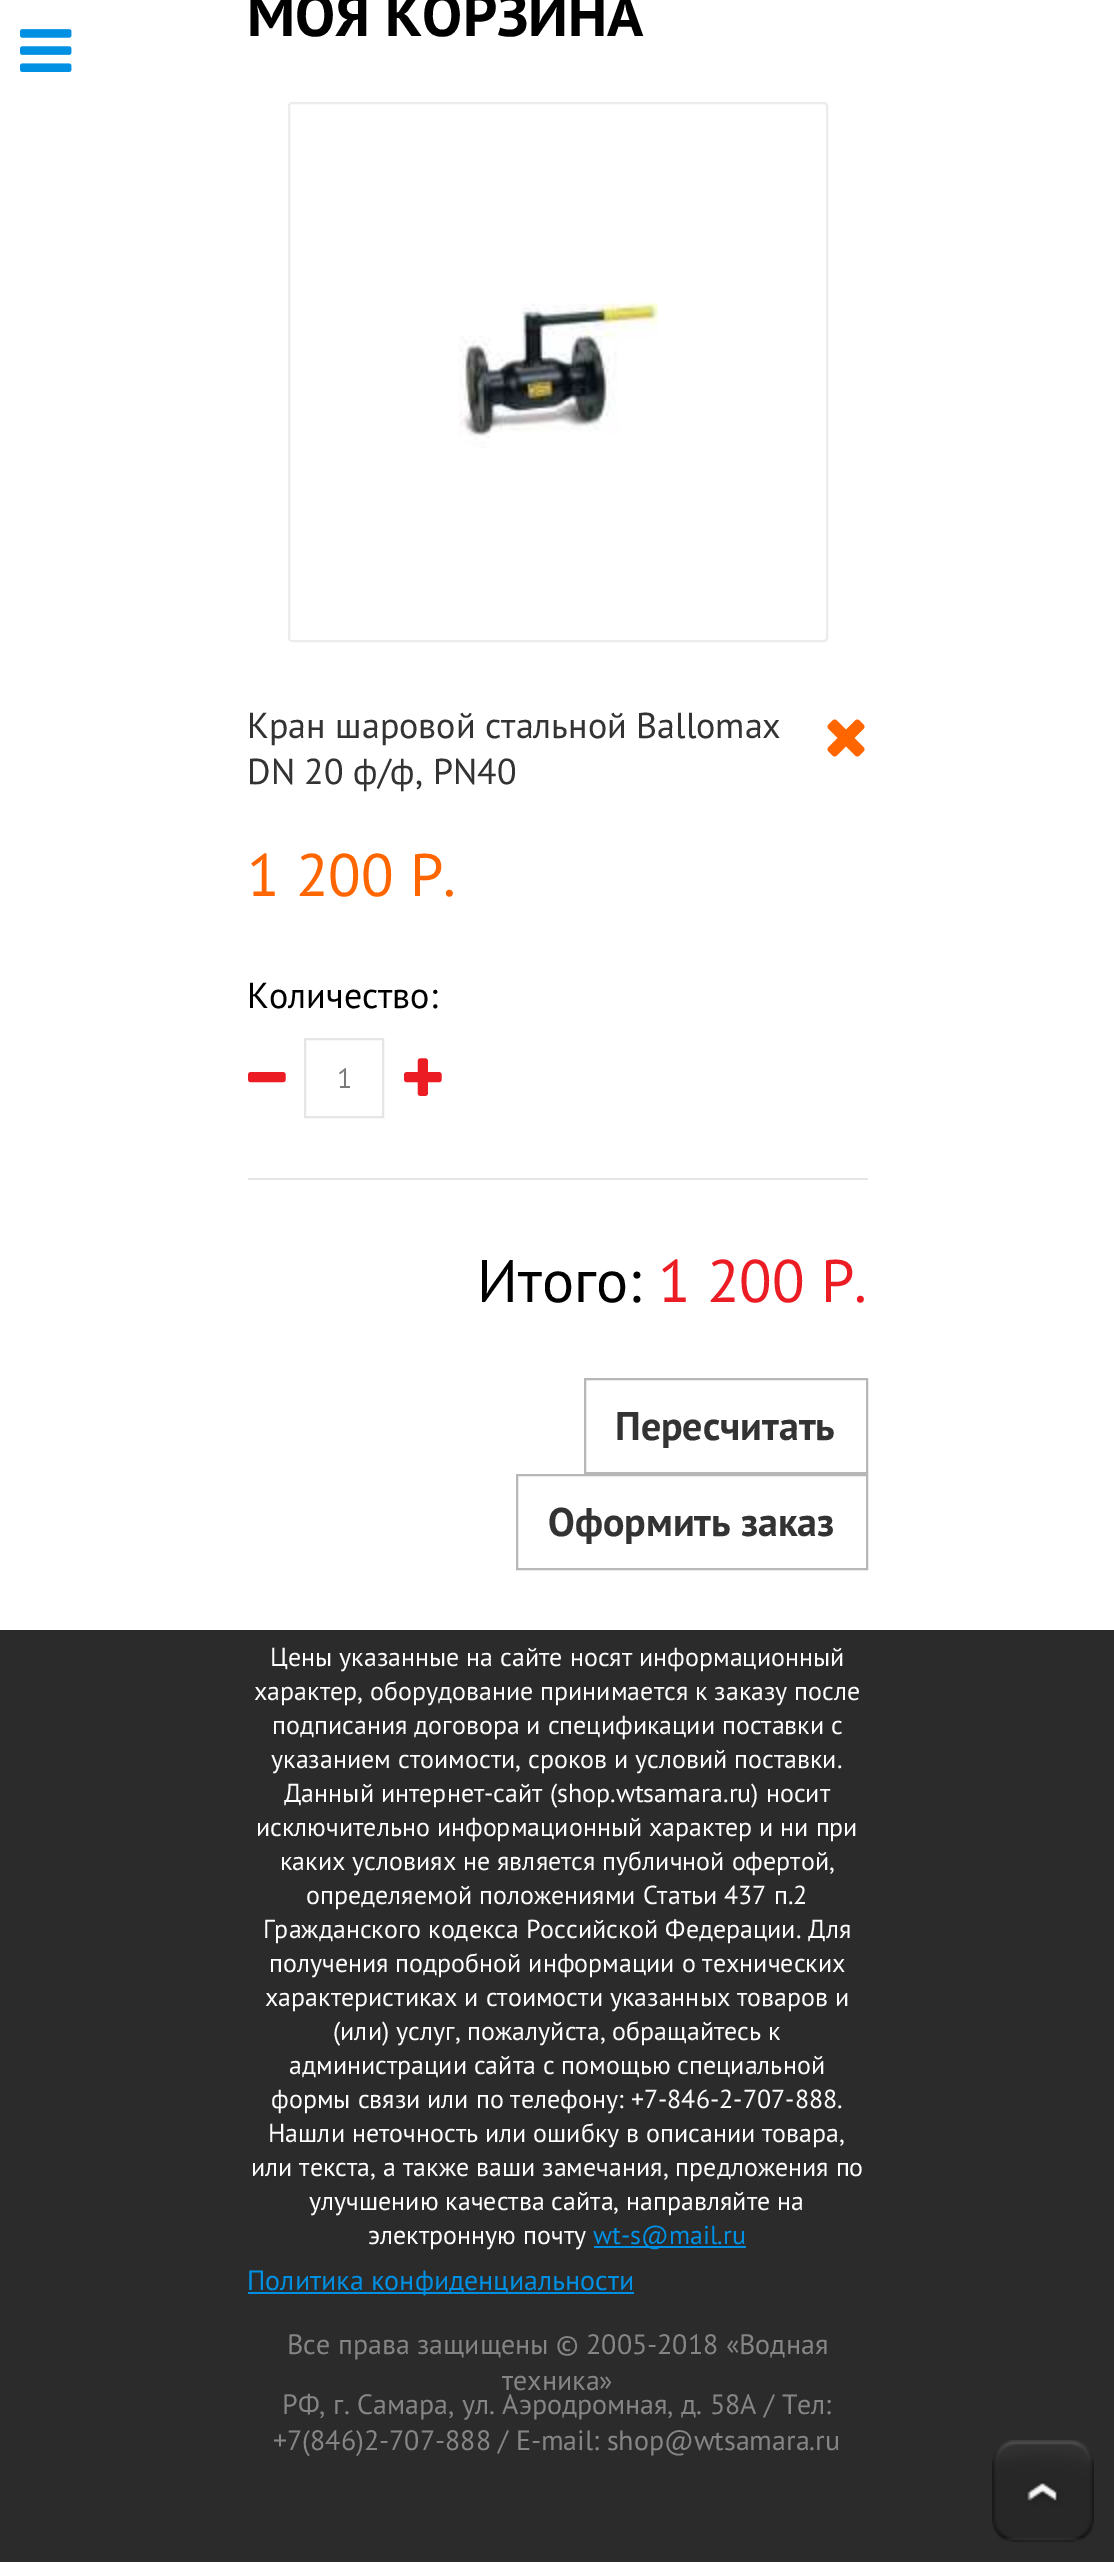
%!PS
<< /PageSize [1114 2562] >> setpagedevice
/roundrect { 5 dict begin { /r /h /w /y /x } { exch def } forall
  x r add y moveto x w add y 2 copy h add r arct x w add y h add x 1 index r arct
  x y h add x y r arct x y 2 copy exch w add exch r arct closepath end } def
/picture { 5 dict begin { /h /w /y /x /name } { exch def } forall
  gsave x y translate w h scale
  w h 8 [w 0 0 h 0 0] name (r) file false 3 colorimage grestore end } def
0 2562 translate 1 -1 scale
4 setmiterlimit
1 setgray
0 0 1114 2562 rectfill
(img1.rgb) 20 29 52 43 picture
/PTSans-Bold [60 0 0 -60 0 0] selectfont
0 setgray
247 36 moveto (МОЯ КОРЗИНА) show
0.925 setgray
2 setlinewidth
289 103 538 538 3 roundrect stroke
(img2.rgb) 458 302 200 146 picture
/PTSans-Regular [36 0 0 -36 0 0] selectfont
0.2 setgray
247 738 moveto (Кран шаровой стальной Ballomax) show
(img3.rgb) 827 719 38 38 picture
247 784 moveto (DN 20 ф/ф, PN40) show
/PTSans-Regular [60 0 0 -60 0 0] selectfont
1 0.4 0 setrgbcolor
247 896 moveto (1 200 Р.) show
/PTSans-Regular [36 0 0 -36 0 0] selectfont
0 setgray
247 1008 moveto (Количество:) show
(img4.rgb) 248 1072 38 11 picture
0.898 setgray
305 1039 78 78 rectstroke
/PTSans-Regular [28 0 0 -28 0 0] selectfont
0.478 setgray
337 1088 moveto (1) show
(img5.rgb) 404 1058 38 38 picture
0.898 setgray
248 1178 620 2 rectfill
/PTSans-Regular [60 0 0 -60 0 0] selectfont
0 setgray
477 1302 moveto (Итого:) show
0.925 0.11 0.141 setrgbcolor
658 1302 moveto (1 200 Р.) show
0.718 setgray
585 1379 282 94 rectstroke
/PTSans-Bold [40 0 0 -40 0 0] selectfont
0.2 setgray
615 1440 moveto (Пересчитать) show
0.718 setgray
517 1475 350 94 rectstroke
0.2 setgray
548 1536 moveto (Оформить заказ) show
0.169 setgray
0 1630 1114 932 rectfill
/PTSans-Regular [26 0 0 -26 0 0] selectfont
1 setgray
270 1666 moveto (Цены указанные на сайте носят информационный) show
254 1700 moveto (характер, оборудование принимается к заказу после) show
272 1734 moveto (подписания договора и спецификации поставки с) show
271 1768 moveto (указанием стоимости, сроков и условий поставки.) show
284 1802 moveto (Данный интернет-сайт \(shop.wtsamara.ru\) носит) show
256 1836 moveto (исключительно информационный характер и ни при) show
280 1870 moveto (каких условиях не является публичной офертой,) show
306 1904 moveto (определяемой положениями Статьи 437 п.2) show
263 1938 moveto (Гражданского кодекса Российской Федерации. Для) show
269 1972 moveto (получения подробной информации о технических) show
265 2006 moveto (характеристиках и стоимости указанных товаров и) show
333 2040 moveto (\(или\) услуг, пожалуйста, обращайтесь к) show
289 2074 moveto (администрации сайта с помощью специальной) show
271 2108 moveto (формы связи или по телефону: +7-846-2-707-888.) show
268 2142 moveto (Нашли неточность или ошибку в описании товара,) show
251 2176 moveto (или текста, а также ваши замечания, предложения по) show
309 2210 moveto (улучшению качества сайта, направляйте на) show
368 2244 moveto (электронную почту) show
0 0.565 0.89 setrgbcolor
594 2246 152 2 rectfill
593 2244 moveto (wt-s@mail.ru) show
248 2292 386 2 rectfill
/PTSans-Regular [28 0 0 -28 0 0] selectfont
247 2290 moveto (Политика конфиденциальности) show
0.525 0.522 0.522 setrgbcolor
287 2354 moveto (Все права защищены © 2005-2018 «Водная) show
502 2390 moveto (техника») show
282 2414 moveto (РФ, г. Самара, ул. Аэродромная, д. 58А / Тел:) show
273 2450 moveto (+7\(846\)2-707-888 / E-mail: shop@wtsamara.ru) show
(img6.rgb) 992 2440 102 102 picture
showpage
